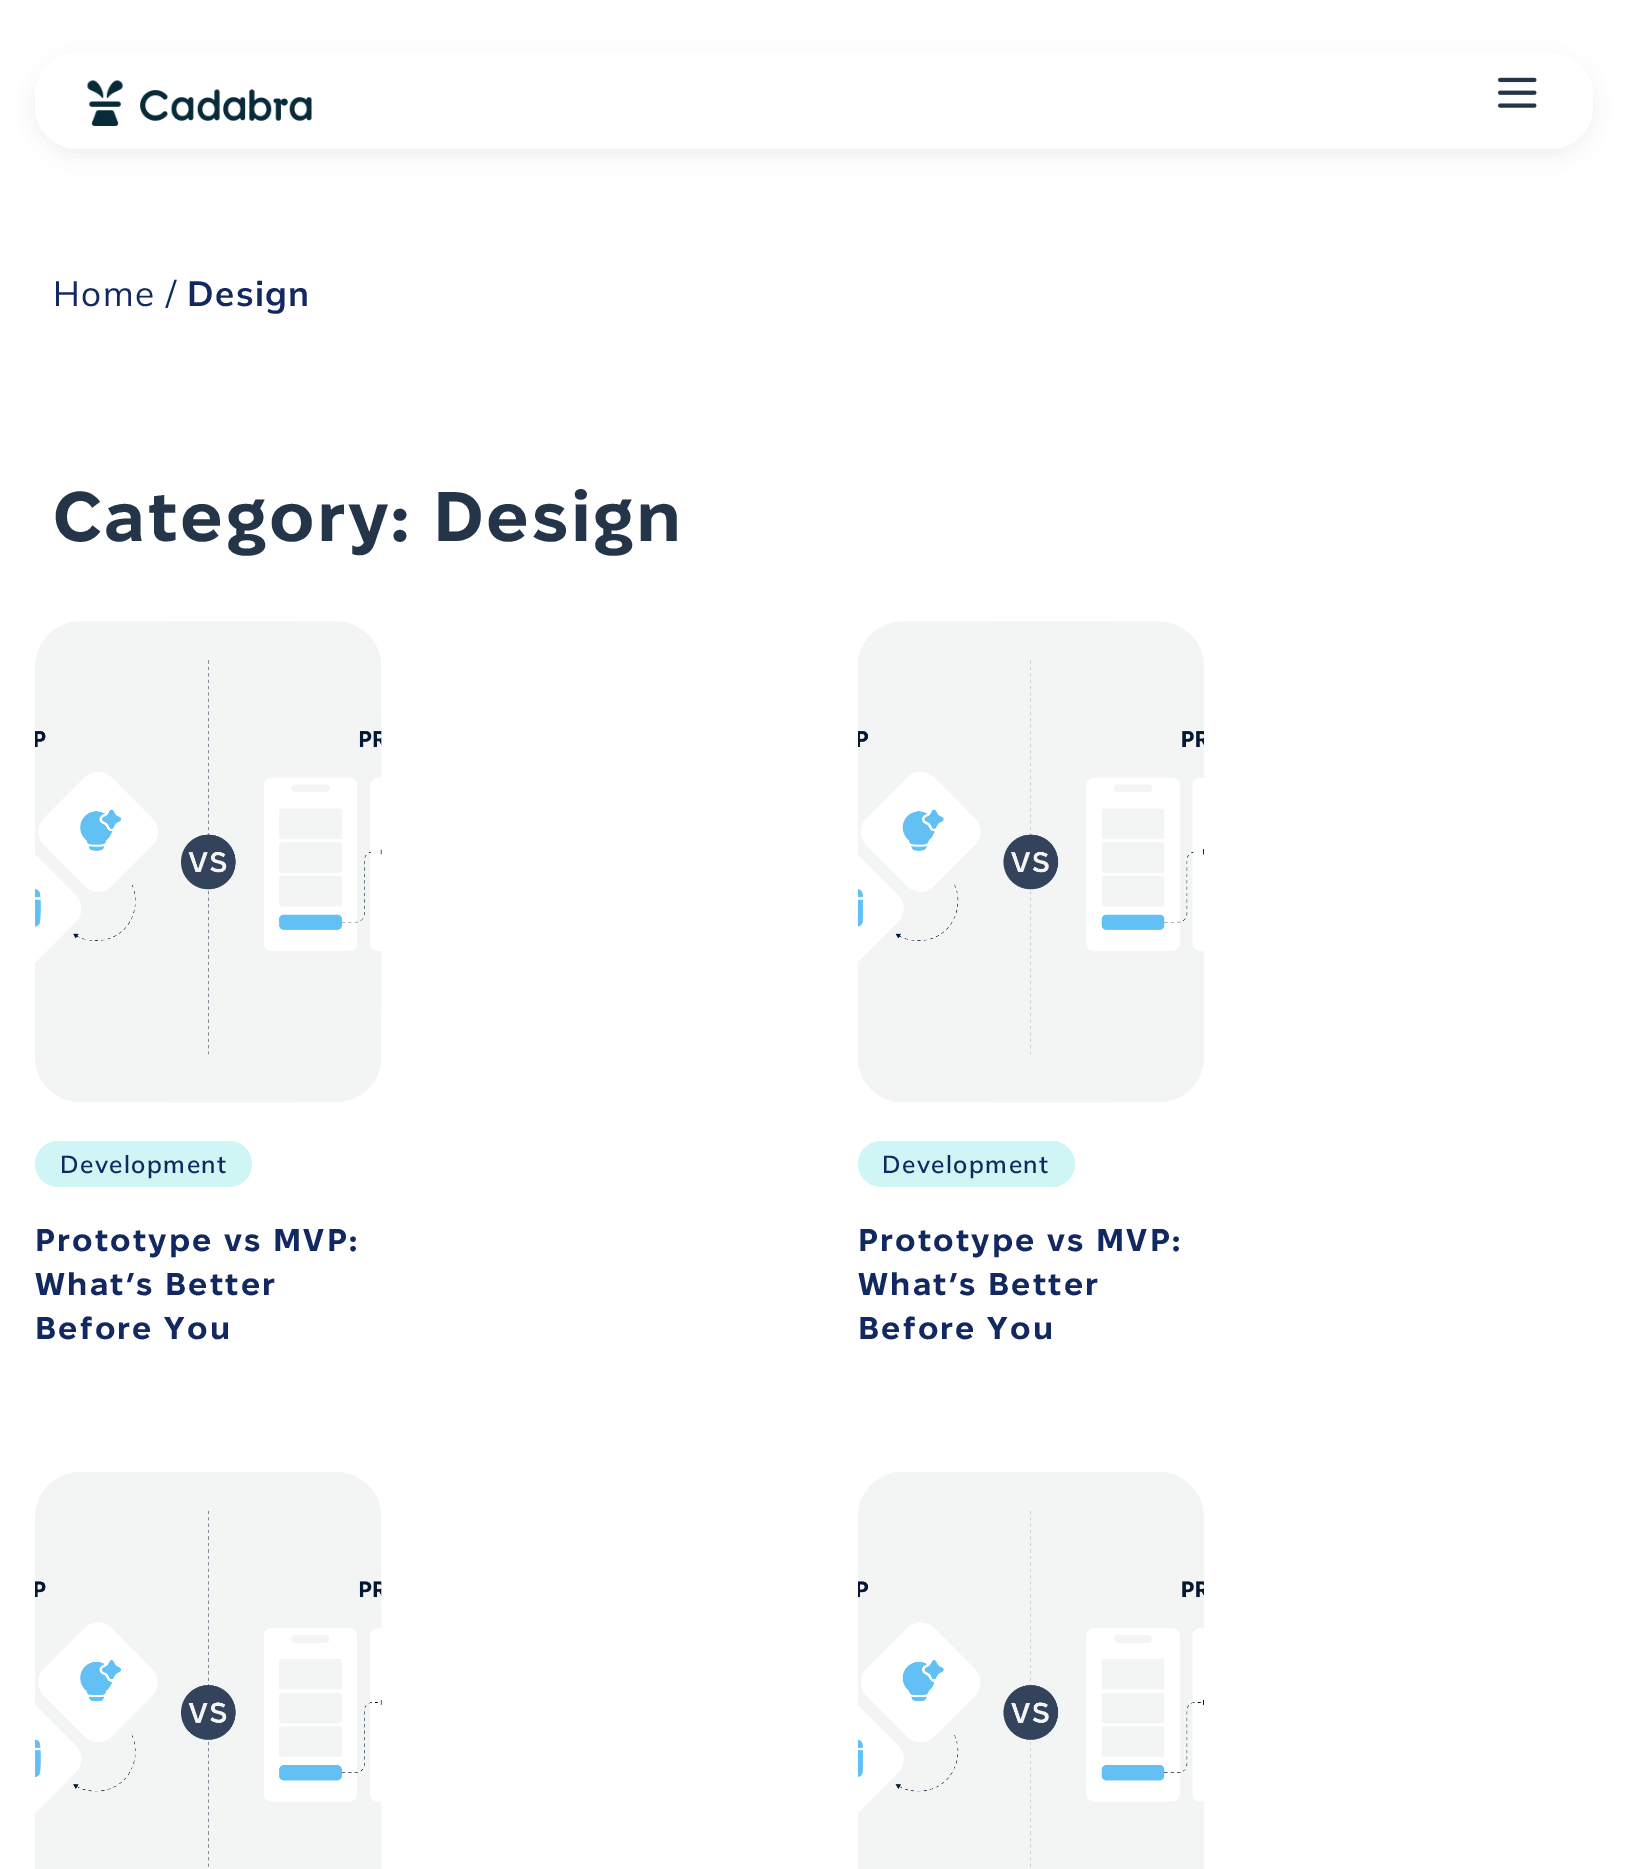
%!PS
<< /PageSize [1627 1869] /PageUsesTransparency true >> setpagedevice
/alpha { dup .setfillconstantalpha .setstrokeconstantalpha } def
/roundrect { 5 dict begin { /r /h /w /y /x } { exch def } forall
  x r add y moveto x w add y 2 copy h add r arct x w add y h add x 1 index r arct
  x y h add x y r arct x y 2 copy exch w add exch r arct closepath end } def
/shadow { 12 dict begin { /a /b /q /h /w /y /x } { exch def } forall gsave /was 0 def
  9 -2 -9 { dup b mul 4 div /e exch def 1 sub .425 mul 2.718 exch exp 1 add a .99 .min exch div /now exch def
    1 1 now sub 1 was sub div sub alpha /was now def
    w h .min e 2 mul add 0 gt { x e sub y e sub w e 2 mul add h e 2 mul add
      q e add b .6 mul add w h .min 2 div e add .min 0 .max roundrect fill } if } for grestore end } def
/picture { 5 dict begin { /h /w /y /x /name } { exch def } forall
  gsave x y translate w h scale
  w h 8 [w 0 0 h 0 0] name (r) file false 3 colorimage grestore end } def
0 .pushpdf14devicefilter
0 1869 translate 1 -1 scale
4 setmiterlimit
1 setgray
0 0 1627 1869 rectfill
0.451 setgray
35 60 1558 96 42 9 0.1 shadow
1 setgray
35 53 1558 96 42 roundrect fill
(img1.rgb) 87 80 225 46 picture
(img2.rgb) 1498 77 39 31 picture
/Mulish-Regular [35 0 0 -35 0 0] selectfont
0.071 0.157 0.38 setrgbcolor
53 306 moveto 1.4 0 (Home /) ashow
/Mulish-Bold [35 0 0 -35 0 0] selectfont
187 306 moveto 1.4 0 (Design) ashow
/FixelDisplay-Bold [70 0 0 -70 0 0] selectfont
0.141 0.204 0.286 setrgbcolor
53 541 moveto 2.75 0 (Category: Design) ashow
(img3.rgb) 35 621 347 482 picture
0.812 0.965 0.961 setrgbcolor
35 1141 217 46 23 roundrect fill
/Mulish-SemiBold [24.5 0 0 -24.5 0 0] selectfont
0.071 0.157 0.38 setrgbcolor
60 1173 moveto 1.4 0 (Development) ashow
/FixelDisplay-Bold [31.5 0 0 -31.5 0 0] selectfont
35 1251 moveto 2.25 0 (Prototype vs MVP:) ashow
35 1295 moveto 2.25 0 (What’s Better) ashow
35 1339 moveto 2.25 0 (Before You) ashow
(img4.rgb) 858 621 346 482 picture
0.812 0.965 0.961 setrgbcolor
858 1141 217 46 23 roundrect fill
/Mulish-SemiBold [24.5 0 0 -24.5 0 0] selectfont
0.071 0.157 0.38 setrgbcolor
882 1173 moveto 1.4 0 (Development) ashow
/FixelDisplay-Bold [31.5 0 0 -31.5 0 0] selectfont
858 1251 moveto 2.25 0 (Prototype vs MVP:) ashow
858 1295 moveto 2.25 0 (What’s Better) ashow
858 1339 moveto 2.25 0 (Before You) ashow
(img5.rgb) 35 1472 347 397 picture
(img6.rgb) 858 1472 346 397 picture
.poppdf14devicefilter showpage
